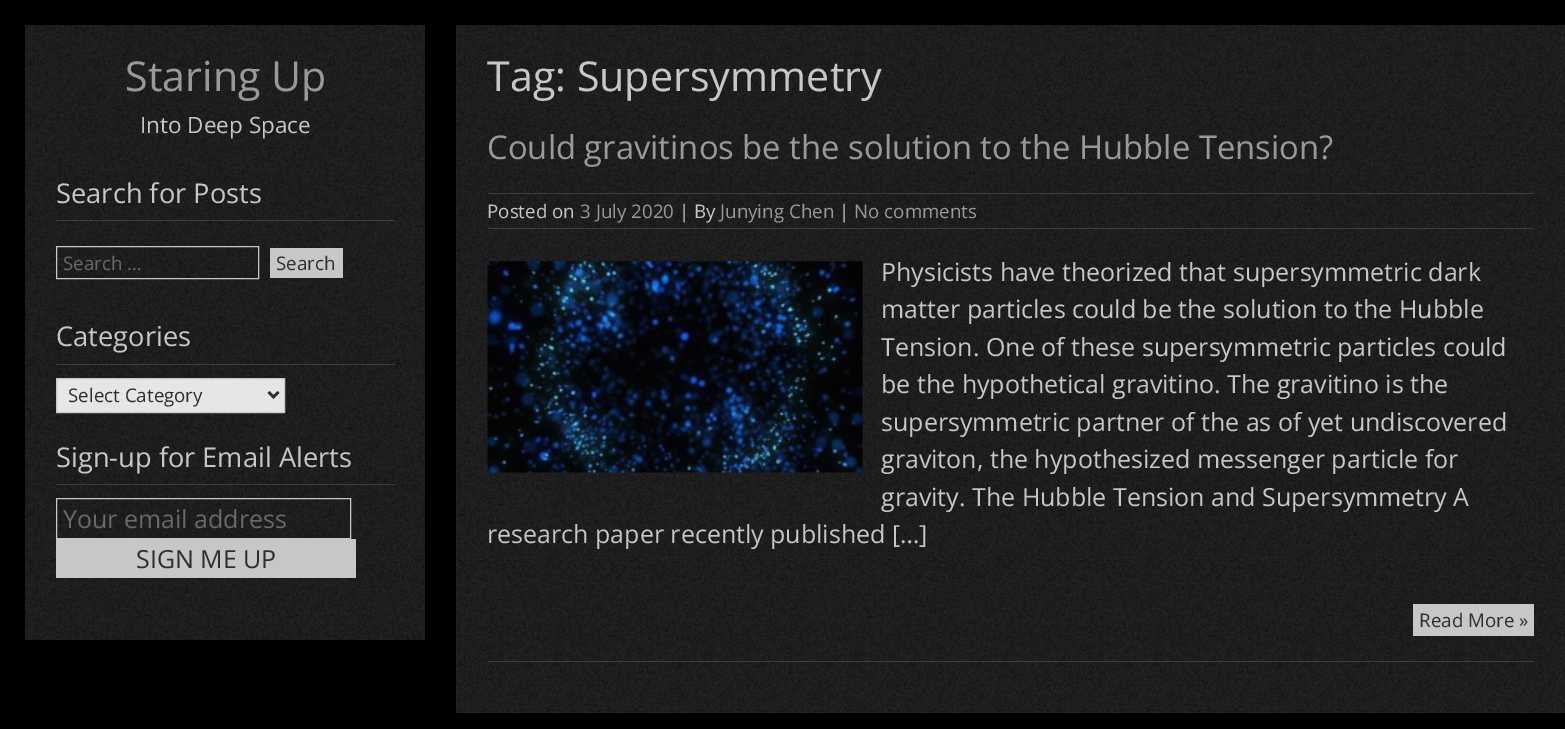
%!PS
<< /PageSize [1565 729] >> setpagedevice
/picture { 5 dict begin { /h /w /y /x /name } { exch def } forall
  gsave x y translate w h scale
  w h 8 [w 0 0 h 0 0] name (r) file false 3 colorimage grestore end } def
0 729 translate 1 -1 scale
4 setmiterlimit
0 setgray
0 0 1565 729 rectfill
(img1.rgb) 25 25 400 615 picture
/OpenSans-Regular [41.25 0 0 -41.25 0 0] selectfont
0.6 setgray
125 91 moveto (Staring Up) show
/OpenSans-Regular [22.5 0 0 -22.5 0 0] selectfont
0.78 setgray
140 133 moveto (Into Deep Space) show
0.239 setgray
56 220 339 1 rectfill
/OpenSans-Regular [27.25 0 0 -27.25 0 0] selectfont
0.78 setgray
56 203 moveto (Search for Posts) show
56.5 246.5 202 32 rectstroke
/OpenSans-Regular [18.75 0 0 -18.75 0 0] selectfont
0.412 setgray
63 270 moveto (Search …) show
0.78 setgray
270 248 73 30 rectfill
0.18 setgray
276 270 moveto (Search) show
0.239 setgray
56 364 339 1 rectfill
/OpenSans-Regular [27.25 0 0 -27.25 0 0] selectfont
0.78 setgray
56 346 moveto (Categories) show
0.902 setgray
newpath 56.5 378.5 moveto 284.5 378.5 lineto 284.5 412.5 lineto 56.5 412.5 lineto closepath gsave fill grestore
0.78 setgray
stroke
0.18 setgray
2.5 setlinewidth
newpath 268.5 392 moveto 273.5 397 lineto 278.5 392 lineto stroke
/OpenSans-Regular [18.75 0 0 -18.75 0 0] selectfont
68 402 moveto (Select Category) show
0.239 setgray
56 484 339 1 rectfill
/OpenSans-Regular [27.25 0 0 -27.25 0 0] selectfont
0.78 setgray
56 467 moveto (Sign-up for Email Alerts) show
1 setlinewidth
56.5 498.5 294 40 rectstroke
/OpenSans-Regular [25 0 0 -25 0 0] selectfont
0.412 setgray
63 528 moveto (Your email address) show
0.78 setgray
56 539 300 39 rectfill
0.18 setgray
136 568 moveto (SIGN ME UP) show
456 25 1109 688 rectfill
(img2.rgb) 456 25 1109 688 picture
/OpenSans-Regular [41.25 0 0 -41.25 0 0] selectfont
0.78 setgray
487 91 moveto (Tag: Supersymmetry) show
0.239 setgray
488 661 1046 1 rectfill
/OpenSans-Regular [32.8 0 0 -32.8 0 0] selectfont
0.6 setgray
487 159 moveto (Could gravitinos be the solution to the Hubble Tension?) show
0.239 setgray
488 193 1046 1 rectfill
488 228 1046 1 rectfill
/OpenSans-Regular [18.75 0 0 -18.75 0 0] selectfont
0.78 setgray
487 218 moveto (Posted on) show
0.6 setgray
580 218 moveto (3 July 2020) show
0.78 setgray
679 218 moveto (| By) show
0.6 setgray
720 218 moveto (Junying Chen) show
0.78 setgray
839 218 moveto (|) show
0.6 setgray
854 218 moveto (No comments) show
(img3.rgb) 487 261 376 212 picture
/OpenSans-Regular [25 0 0 -25 0 0] selectfont
0.78 setgray
881 281 moveto (Physicists have theorized that supersymmetric dark) show
881 318 moveto (matter particles could be the solution to the Hubble) show
881 356 moveto (Tension. One of these supersymmetric particles could) show
881 393 moveto (be the hypothetical gravitino. The gravitino is the) show
881 431 moveto (supersymmetric partner of the as of yet undiscovered) show
881 468 moveto (graviton, the hypothesized messenger particle for) show
881 506 moveto (gravity. The Hubble Tension and Supersymmetry A) show
487 543 moveto (research paper recently published […]) show
1413 604 121 32 rectfill
/OpenSans-Regular [18.75 0 0 -18.75 0 0] selectfont
0.18 setgray
1419 627 moveto (Read More ») show
showpage
